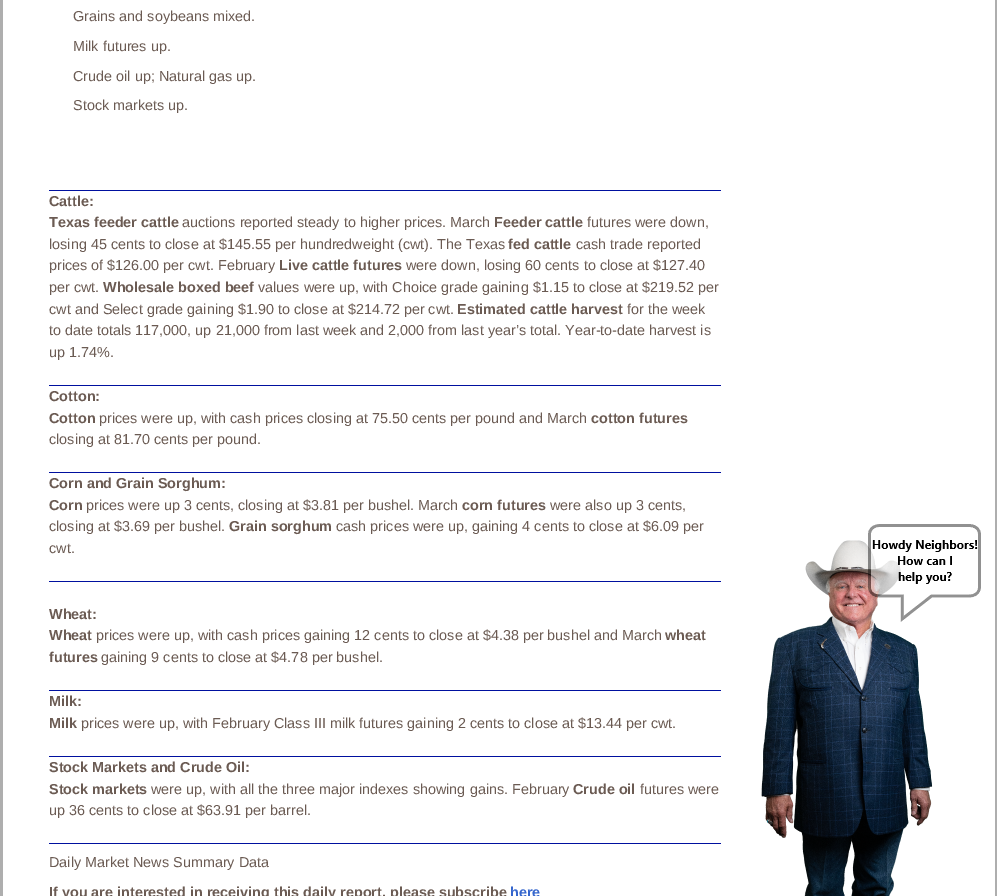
%!PS
<< /PageSize [997 896] >> setpagedevice
/picture { 5 dict begin { /h /w /y /x /name } { exch def } forall
  gsave x y translate w h scale
  w h 8 [w 0 0 h 0 0] name (r) file false 3 colorimage grestore end } def
0 896 translate 1 -1 scale
4 setmiterlimit
0.682 setgray
0 0 997 896 rectfill
1 setgray
3 0 992 896 rectfill
0 0.063 0.624 setrgbcolor
49 190 672 1 rectfill
/LiberationSans-Regular [14.4 0 0 -14.4 0 0] selectfont
0.42 0.357 0.325 setrgbcolor
73 21 moveto (Grains and soybeans mixed.) show
73 51 moveto (Milk futures up.) show
73 81 moveto (Crude oil up; Natural gas up.) show
73 110 moveto (Stock markets up.) show
0 0.063 0.624 setrgbcolor
49 385 672 1 rectfill
/LiberationSans-Bold [14.4 0 0 -14.4 0 0] selectfont
0.42 0.357 0.325 setrgbcolor
49 206 moveto (Cattle:) show
49 227 moveto (Texas feeder cattle) show
/LiberationSans-Regular [14.4 0 0 -14.4 0 0] selectfont
182 227 moveto (auctions reported steady to higher prices. March) show
/LiberationSans-Bold [14.4 0 0 -14.4 0 0] selectfont
494 227 moveto (Feeder cattle) show
/LiberationSans-Regular [14.4 0 0 -14.4 0 0] selectfont
587 227 moveto (futures were down,) show
49 249 moveto (losing 45 cents to close at $145.55 per hundredweight \(cwt\). The Texas) show
/LiberationSans-Bold [14.4 0 0 -14.4 0 0] selectfont
508 249 moveto (fed cattle) show
/LiberationSans-Regular [14.4 0 0 -14.4 0 0] selectfont
576 249 moveto (cash trade reported) show
49 270 moveto (prices of $126.00 per cwt. February) show
/LiberationSans-Bold [14.4 0 0 -14.4 0 0] selectfont
279 270 moveto (Live cattle futures) show
/LiberationSans-Regular [14.4 0 0 -14.4 0 0] selectfont
406 270 moveto (were down, losing 60 cents to close at $127.40) show
49 292 moveto (per cwt.) show
/LiberationSans-Bold [14.4 0 0 -14.4 0 0] selectfont
103 292 moveto (Wholesale boxed beef) show
/LiberationSans-Regular [14.4 0 0 -14.4 0 0] selectfont
258 292 moveto (values were up, with Choice grade gaining $1.15 to close at $219.52 per) show
49 314 moveto (cwt and Select grade gaining $1.90 to close at $214.72 per cwt.) show
/LiberationSans-Bold [14.4 0 0 -14.4 0 0] selectfont
457 314 moveto (Estimated cattle harvest) show
/LiberationSans-Regular [14.4 0 0 -14.4 0 0] selectfont
627 314 moveto (for the week) show
49 335 moveto (to date totals 117,000, up 21,000 from last week and 2,000 from last year’s total. Year-to-date harvest is) show
49 357 moveto (up 1.74%.) show
0 0.063 0.624 setrgbcolor
49 472 672 1 rectfill
/LiberationSans-Bold [14.4 0 0 -14.4 0 0] selectfont
0.42 0.357 0.325 setrgbcolor
49 401 moveto (Cotton:) show
49 423 moveto (Cotton) show
/LiberationSans-Regular [14.4 0 0 -14.4 0 0] selectfont
99 423 moveto (prices were up, with cash prices closing at 75.50 cents per pound and March) show
/LiberationSans-Bold [14.4 0 0 -14.4 0 0] selectfont
591 423 moveto (cotton futures) show
/LiberationSans-Regular [14.4 0 0 -14.4 0 0] selectfont
49 444 moveto (closing at 81.70 cents per pound.) show
0 0.063 0.624 setrgbcolor
49 581 672 1 rectfill
/LiberationSans-Bold [14.4 0 0 -14.4 0 0] selectfont
0.42 0.357 0.325 setrgbcolor
49 488 moveto (Corn and Grain Sorghum:) show
49 510 moveto (Corn) show
/LiberationSans-Regular [14.4 0 0 -14.4 0 0] selectfont
86 510 moveto (prices were up 3 cents, closing at $3.81 per bushel. March) show
/LiberationSans-Bold [14.4 0 0 -14.4 0 0] selectfont
462 510 moveto (corn futures) show
/LiberationSans-Regular [14.4 0 0 -14.4 0 0] selectfont
550 510 moveto (were also up 3 cents,) show
49 531 moveto (closing at $3.69 per bushel.) show
/LiberationSans-Bold [14.4 0 0 -14.4 0 0] selectfont
229 531 moveto (Grain sorghum) show
/LiberationSans-Regular [14.4 0 0 -14.4 0 0] selectfont
336 531 moveto (cash prices were up, gaining 4 cents to close at $6.09 per) show
49 553 moveto (cwt.) show
0 0.063 0.624 setrgbcolor
49 690 672 1 rectfill
/LiberationSans-Bold [14.4 0 0 -14.4 0 0] selectfont
0.42 0.357 0.325 setrgbcolor
49 619 moveto (Wheat:) show
49 640 moveto (Wheat) show
/LiberationSans-Regular [14.4 0 0 -14.4 0 0] selectfont
96 640 moveto (prices were up, with cash prices gaining 12 cents to close at $4.38 per bushel and March) show
/LiberationSans-Bold [14.4 0 0 -14.4 0 0] selectfont
665 640 moveto (wheat) show
49 662 moveto (futures) show
/LiberationSans-Regular [14.4 0 0 -14.4 0 0] selectfont
101 662 moveto (gaining 9 cents to close at $4.78 per bushel.) show
0 0.063 0.624 setrgbcolor
49 756 672 1 rectfill
/LiberationSans-Bold [14.4 0 0 -14.4 0 0] selectfont
0.42 0.357 0.325 setrgbcolor
49 706 moveto (Milk:) show
49 728 moveto (Milk) show
/LiberationSans-Regular [14.4 0 0 -14.4 0 0] selectfont
81 728 moveto (prices were up, with February Class III milk futures gaining 2 cents to close at $13.44 per cwt.) show
0 0.063 0.624 setrgbcolor
49 843 672 1 rectfill
/LiberationSans-Bold [14.4 0 0 -14.4 0 0] selectfont
0.42 0.357 0.325 setrgbcolor
49 772 moveto (Stock Markets and Crude Oil:) show
49 794 moveto (Stock markets) show
/LiberationSans-Regular [14.4 0 0 -14.4 0 0] selectfont
151 794 moveto (were up, with all the three major indexes showing gains. February) show
/LiberationSans-Bold [14.4 0 0 -14.4 0 0] selectfont
573 794 moveto (Crude oil) show
/LiberationSans-Regular [14.4 0 0 -14.4 0 0] selectfont
640 794 moveto (futures were) show
49 815 moveto (up 36 cents to close at $63.91 per barrel.) show
49 867 moveto (Daily Market News Summary Data) show
/LiberationSans-Bold [14.4 0 0 -14.4 0 0] selectfont
49 897 moveto (If you are interested in receiving this daily report, please subscribe) show
0.208 0.4 0.804 setrgbcolor
510 897 moveto (here) show
(img1.rgb) 761 524 220 372 picture
showpage
